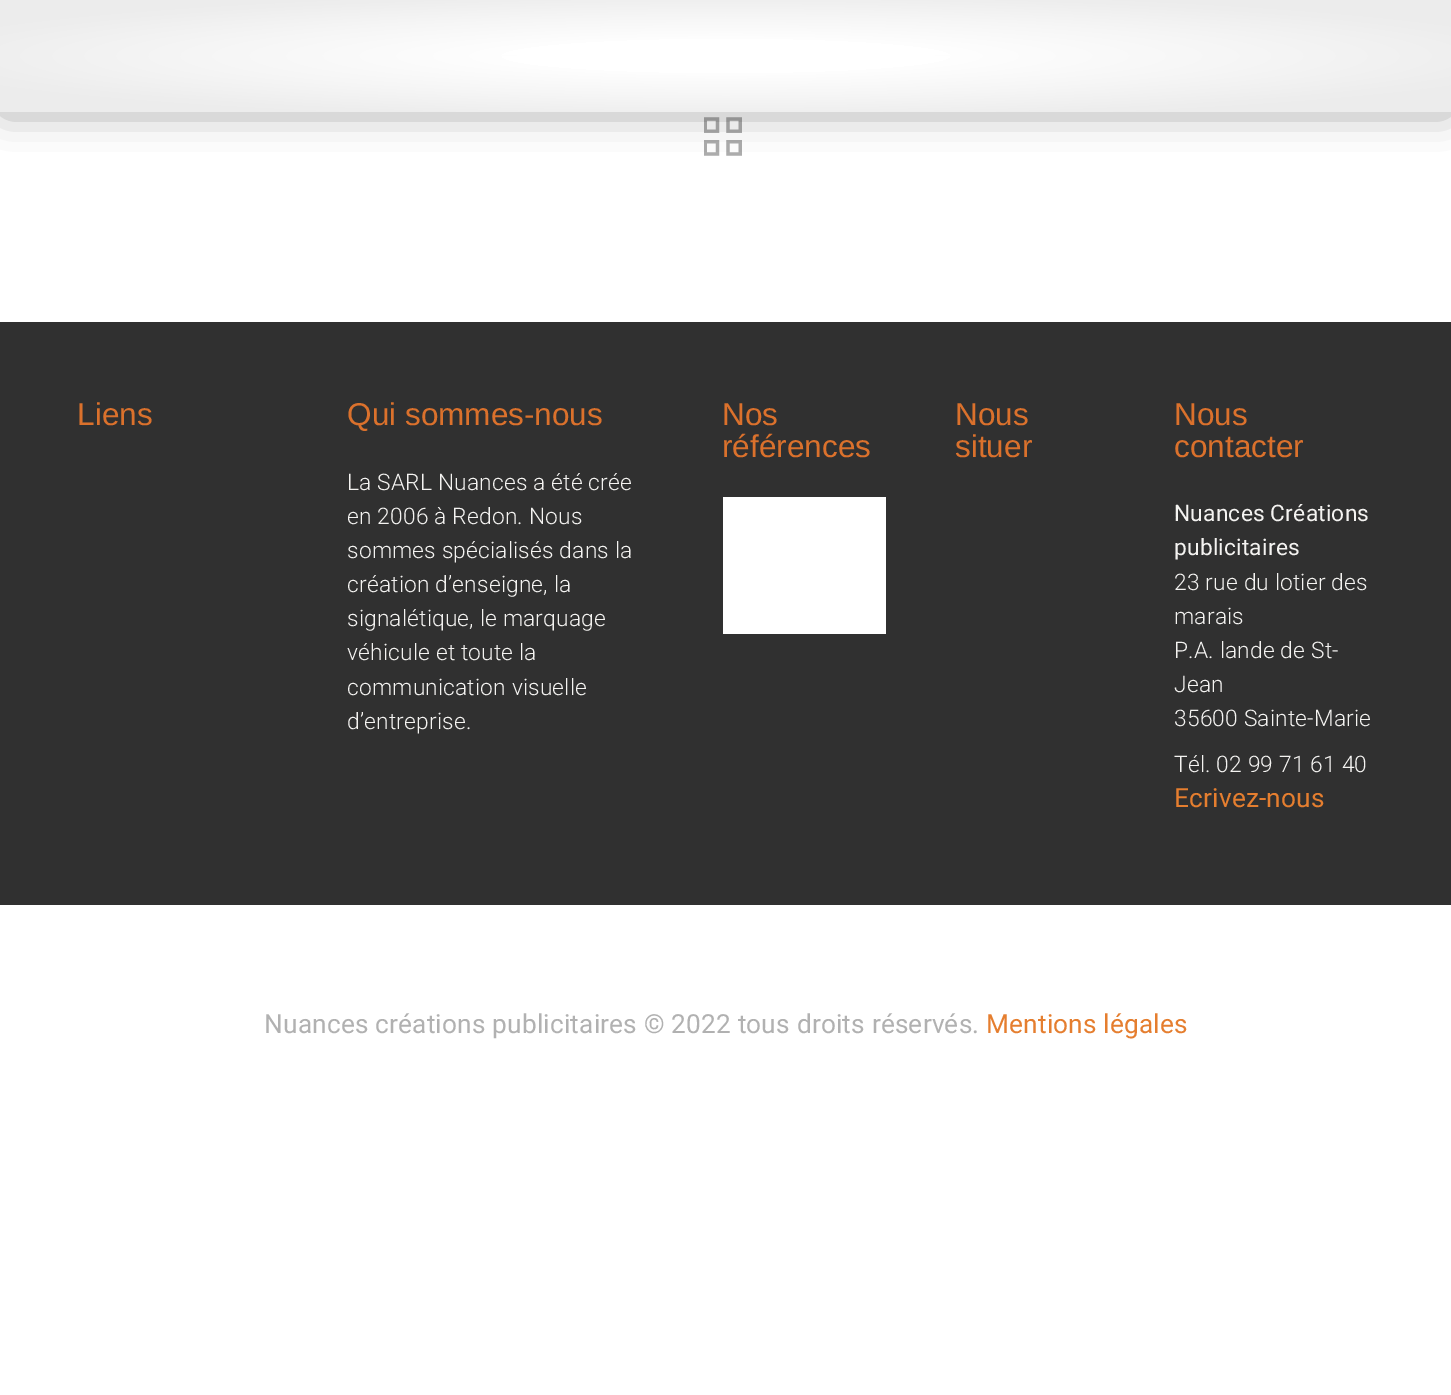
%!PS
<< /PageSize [1451 1395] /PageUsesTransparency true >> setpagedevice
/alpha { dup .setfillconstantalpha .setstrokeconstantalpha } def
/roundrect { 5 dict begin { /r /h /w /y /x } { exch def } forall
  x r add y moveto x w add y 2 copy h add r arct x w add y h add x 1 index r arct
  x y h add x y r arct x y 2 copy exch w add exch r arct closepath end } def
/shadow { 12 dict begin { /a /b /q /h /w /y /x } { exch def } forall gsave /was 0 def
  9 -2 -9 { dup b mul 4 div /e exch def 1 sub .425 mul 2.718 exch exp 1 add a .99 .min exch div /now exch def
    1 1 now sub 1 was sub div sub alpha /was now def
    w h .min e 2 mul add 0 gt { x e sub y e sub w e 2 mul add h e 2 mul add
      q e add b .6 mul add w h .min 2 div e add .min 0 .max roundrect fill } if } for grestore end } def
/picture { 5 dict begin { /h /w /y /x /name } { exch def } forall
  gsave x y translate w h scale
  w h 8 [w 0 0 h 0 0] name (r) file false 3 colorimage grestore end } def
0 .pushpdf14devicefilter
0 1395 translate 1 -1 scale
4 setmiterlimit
1 setgray
0 0 1451 1395 rectfill
(img1.rgb) 704 117 38 39 picture
0 setgray
5 5 1442 102 0 20 0.5 shadow
gsave newpath 0 0 moveto 1451 0 lineto 1451 112 lineto 0 112 lineto closepath clip newpath 726 56 translate 1027 79 scale
<< /ShadingType 3 /ColorSpace /DeviceRGB /Coords [0 0 0 0 0 1] /Extend [true true] /Function << /FunctionType 3 /Domain [0 1] /Functions [<< /FunctionType 2 /Domain [0 1] /C0 [1 1 1] /C1 [1 1 1] /N 1 >> << /FunctionType 2 /Domain [0 1] /C0 [1 1 1] /C1 [0.925 0.925 0.925] /N 1 >> << /FunctionType 2 /Domain [0 1] /C0 [0.925 0.925 0.925] /C1 [0.925 0.925 0.925] /N 1 >>] /Bounds [0.2 0.81] /Encode [0 1 0 1 0 1] >> >> shfill grestore
0.188 setgray
0 322 1451 583 rectfill
/LiberationSans-Regular [31.5 0 0 -31.5 0 0] selectfont
0.859 0.443 0.173 setrgbcolor
77 425 moveto (Liens) show
347 425 moveto (Qui sommes-nous) show
/Roboto-Light [22.75 0 0 -22.75 0 0] selectfont
0.957 0.953 0.945 setrgbcolor
347 490 moveto 0.18 0 (La SARL Nuances a été crée) ashow
347 524 moveto 0.18 0 (en 2006 à Redon. Nous) ashow
347 558 moveto 0.18 0 (sommes spécialisés dans la) ashow
347 592 moveto 0.18 0 (création d’enseigne, la) ashow
347 626 moveto 0.18 0 (signalétique, le marquage) ashow
347 660 moveto 0.18 0 (véhicule et toute la) ashow
347 695 moveto 0.18 0 (communication visuelle) ashow
347 729 moveto 0.18 0 (d’entreprise.) ashow
/LiberationSans-Regular [31.5 0 0 -31.5 0 0] selectfont
0.859 0.443 0.173 setrgbcolor
722 425 moveto (Nos) show
722 457 moveto (références) show
1 setgray
723 497 163 137 rectfill
0.859 0.443 0.173 setrgbcolor
955 425 moveto (Nous) show
955 457 moveto (situer) show
1174 425 moveto (Nous) show
1174 457 moveto (contacter) show
/Roboto-Regular [22.75 0 0 -22.75 0 0] selectfont
0.957 0.953 0.945 setrgbcolor
1174 521 moveto 0.18 0 (Nuances Créations) ashow
1174 555 moveto 0.18 0 (publicitaires) ashow
/Roboto-Light [22.75 0 0 -22.75 0 0] selectfont
1174 590 moveto 0.18 0 (23 rue du lotier des) ashow
1174 624 moveto 0.18 0 (marais) ashow
1174 658 moveto 0.18 0 (P.A. lande de St-) ashow
1174 692 moveto 0.18 0 (Jean) ashow
1174 726 moveto 0.18 0 (35600 Sainte-Marie) ashow
1174 772 moveto 0.18 0 (Tél. 02 99 71 61 40) ashow
/Roboto-Regular [26.25 0 0 -26.25 0 0] selectfont
0.898 0.494 0.184 setrgbcolor
1174 807 moveto 0.18 0 (Ecrivez-nous) ashow
0.694 setgray
264 1033 moveto 0.18 0 (Nuances créations publicitaires © 2022 tous droits réservés.) ashow
0.898 0.494 0.184 setrgbcolor
986 1033 moveto 0.18 0 (Mentions légales) ashow
.poppdf14devicefilter showpage
